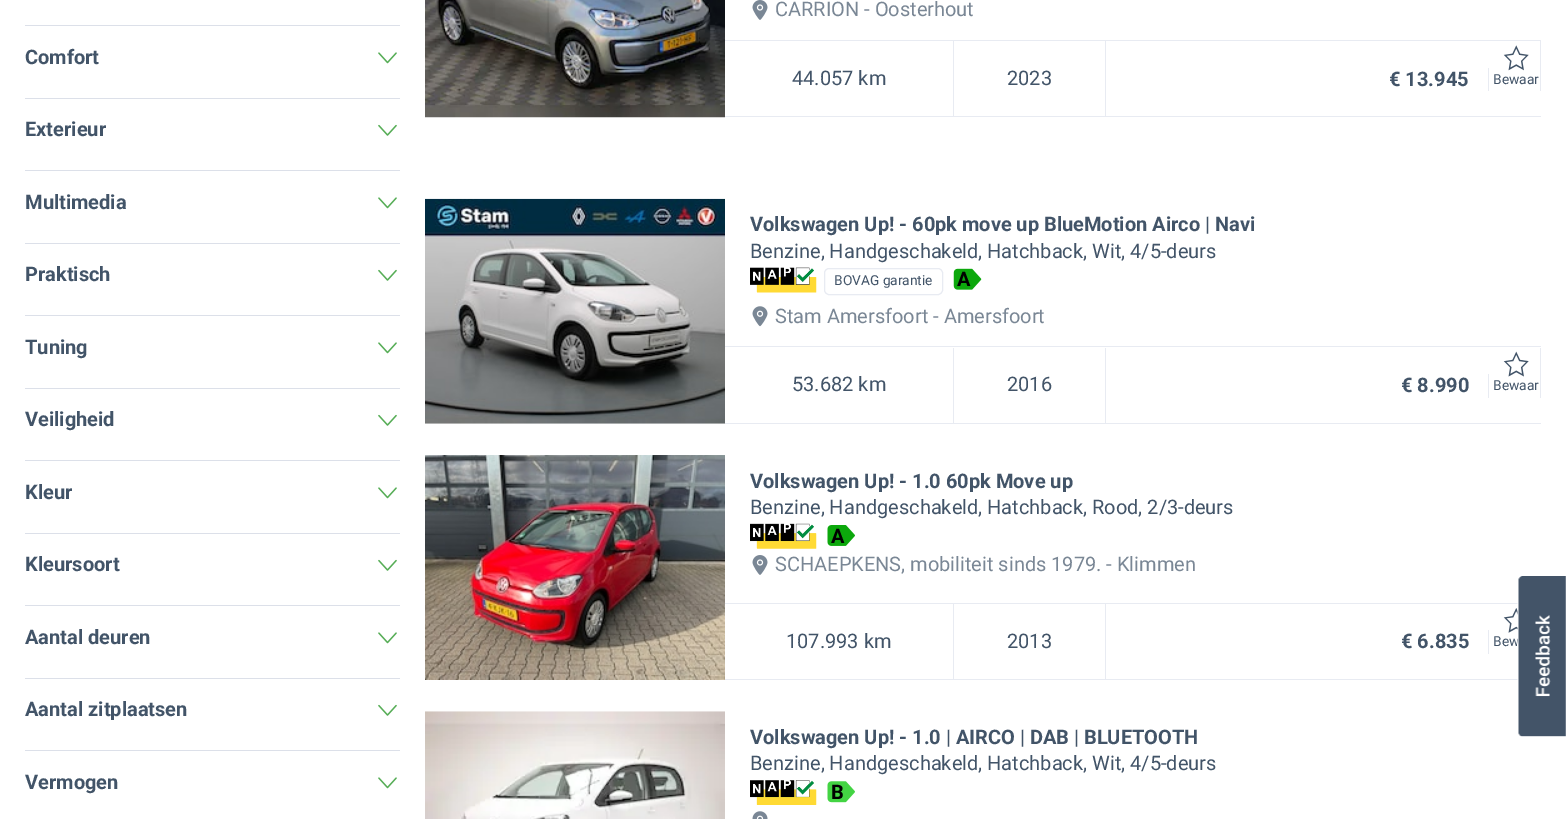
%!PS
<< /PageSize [1566 819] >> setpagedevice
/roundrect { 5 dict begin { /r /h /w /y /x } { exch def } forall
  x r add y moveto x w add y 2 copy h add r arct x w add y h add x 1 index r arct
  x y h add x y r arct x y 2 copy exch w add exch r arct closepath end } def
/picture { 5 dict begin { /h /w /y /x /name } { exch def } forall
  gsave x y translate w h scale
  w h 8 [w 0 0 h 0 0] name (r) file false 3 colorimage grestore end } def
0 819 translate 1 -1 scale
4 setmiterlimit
1 setgray
0 0 1566 819 rectfill
0.863 0.878 0.914 setrgbcolor
25 25 375 1 rectfill
/Roboto-Bold [20 0 0 -20 0 0] selectfont
0.259 0.329 0.408 setrgbcolor
25 64 moveto (Comfort) show
(img1.rgb) 378 52 19 12 picture
0.863 0.878 0.914 setrgbcolor
25 98 375 1 rectfill
0.259 0.329 0.408 setrgbcolor
25 136 moveto (Exterieur) show
(img2.rgb) 378 124 19 12 picture
0.863 0.878 0.914 setrgbcolor
25 170 375 1 rectfill
0.259 0.329 0.408 setrgbcolor
25 209 moveto (Multimedia) show
(img1.rgb) 378 197 19 12 picture
0.863 0.878 0.914 setrgbcolor
25 243 375 1 rectfill
0.259 0.329 0.408 setrgbcolor
25 281 moveto (Praktisch) show
(img2.rgb) 378 269 19 12 picture
0.863 0.878 0.914 setrgbcolor
25 315 375 1 rectfill
0.259 0.329 0.408 setrgbcolor
25 354 moveto (Tuning) show
(img1.rgb) 378 342 19 12 picture
0.863 0.878 0.914 setrgbcolor
25 388 375 1 rectfill
0.259 0.329 0.408 setrgbcolor
25 426 moveto (Veiligheid) show
(img2.rgb) 378 414 19 12 picture
0.863 0.878 0.914 setrgbcolor
25 460 375 1 rectfill
0.259 0.329 0.408 setrgbcolor
25 499 moveto (Kleur) show
(img1.rgb) 378 487 19 12 picture
0.863 0.878 0.914 setrgbcolor
25 533 375 1 rectfill
0.259 0.329 0.408 setrgbcolor
25 571 moveto (Kleursoort) show
(img2.rgb) 378 559 19 12 picture
0.863 0.878 0.914 setrgbcolor
25 605 375 1 rectfill
0.259 0.329 0.408 setrgbcolor
25 644 moveto (Aantal deuren) show
(img1.rgb) 378 632 19 12 picture
0.863 0.878 0.914 setrgbcolor
25 678 375 1 rectfill
0.259 0.329 0.408 setrgbcolor
25 716 moveto (Aantal zitplaatsen) show
(img2.rgb) 378 704 19 12 picture
0.863 0.878 0.914 setrgbcolor
25 750 375 1 rectfill
0.259 0.329 0.408 setrgbcolor
25 789 moveto (Vermogen) show
(img1.rgb) 378 777 19 12 picture
(img3.rgb) 425 0 300 118 picture
(img4.rgb) 752 0 16 20 picture
/Roboto-Regular [20 0 0 -20 0 0] selectfont
0.478 0.529 0.584 setrgbcolor
775 16 moveto (CARRION - Oosterhout) show
0.91 0.922 0.949 setrgbcolor
725 40 816 1 rectfill
725 116 816 1 rectfill
953 41 1 75 rectfill
0.259 0.329 0.408 setrgbcolor
792 85 moveto (44.057 km) show
0.91 0.922 0.949 setrgbcolor
1105 41 1 75 rectfill
0.259 0.329 0.408 setrgbcolor
1007 85 moveto (2023) show
0.91 0.922 0.949 setrgbcolor
1488 68 1 23 rectfill
/Roboto-Bold [20 0 0 -20 0 0] selectfont
0.259 0.329 0.408 setrgbcolor
1389 86 moveto (€ 13.945) show
0.91 0.922 0.949 setrgbcolor
1540 41 1 50 rectfill
(img5.rgb) 1503 45 26 26 picture
/Roboto-Regular [13.75 0 0 -13.75 0 0] selectfont
0.259 0.329 0.408 setrgbcolor
1493 84 moveto (Bewaar) show
(img6.rgb) 425 198 300 226 picture
/Roboto-Bold [20 0 0 -20 0 0] selectfont
750 231 moveto (Volkswagen Up! - 60pk move up BlueMotion Airco | Navi) show
/Roboto-Regular [20 0 0 -20 0 0] selectfont
750 258 moveto (Benzine, Handgeschakeld, Hatchback, Wit, 4/5-deurs) show
(img7.rgb) 750 267 67 26 picture
0.91 0.922 0.949 setrgbcolor
824.5 268.5 118 26 4.5 roundrect stroke
/Roboto-Regular [13.75 0 0 -13.75 0 0] selectfont
0.259 0.329 0.408 setrgbcolor
834 285 moveto (BOVAG garantie) show
(img8.rgb) 953 268 29 22 picture
/Roboto-Bold [20 0 0 -20 0 0] selectfont
0 setgray
957 286 moveto (A) show
(img9.rgb) 752 306 16 21 picture
/Roboto-Regular [20 0 0 -20 0 0] selectfont
0.478 0.529 0.584 setrgbcolor
775 323 moveto (Stam Amersfoort - Amersfoort) show
0.91 0.922 0.949 setrgbcolor
725 346 816 1 rectfill
725 423 816 1 rectfill
953 348 1 75 rectfill
0.259 0.329 0.408 setrgbcolor
792 391 moveto (53.682 km) show
0.91 0.922 0.949 setrgbcolor
1105 348 1 75 rectfill
0.259 0.329 0.408 setrgbcolor
1007 391 moveto (2016) show
0.91 0.922 0.949 setrgbcolor
1488 374 1 24 rectfill
/Roboto-Bold [20 0 0 -20 0 0] selectfont
0.259 0.329 0.408 setrgbcolor
1401 392 moveto (€ 8.990) show
0.91 0.922 0.949 setrgbcolor
1540 348 1 50 rectfill
(img10.rgb) 1503 351 26 26 picture
/Roboto-Regular [13.75 0 0 -13.75 0 0] selectfont
0.259 0.329 0.408 setrgbcolor
1493 390 moveto (Bewaar) show
(img11.rgb) 425 455 300 225 picture
/Roboto-Bold [20 0 0 -20 0 0] selectfont
750 488 moveto (Volkswagen Up! - 1.0 60pk Move up) show
/Roboto-Regular [20 0 0 -20 0 0] selectfont
750 514 moveto (Benzine, Handgeschakeld, Hatchback, Rood, 2/3-deurs) show
(img12.rgb) 750 523 67 26 picture
(img13.rgb) 827 525 28 21 picture
/Roboto-Bold [20 0 0 -20 0 0] selectfont
0 setgray
831 543 moveto (A) show
(img4.rgb) 752 555 16 20 picture
/Roboto-Regular [20 0 0 -20 0 0] selectfont
0.478 0.529 0.584 setrgbcolor
775 571 moveto (SCHAEPKENS, mobiliteit sinds 1979. - Klimmen) show
0.91 0.922 0.949 setrgbcolor
725 603 793 1 rectfill
725 679 793 1 rectfill
953 604 1 75 rectfill
0.259 0.329 0.408 setrgbcolor
786 648 moveto (107.993 km) show
0.91 0.922 0.949 setrgbcolor
1105 604 1 75 rectfill
0.259 0.329 0.408 setrgbcolor
1007 648 moveto (2013) show
0.91 0.922 0.949 setrgbcolor
1488 630 1 24 rectfill
/Roboto-Bold [20 0 0 -20 0 0] selectfont
0.259 0.329 0.408 setrgbcolor
1401 648 moveto (€ 6.835) show
(img14.rgb) 1503 608 15 25 picture
/Roboto-Regular [13.75 0 0 -13.75 0 0] selectfont
1493 646 moveto (Bew) show
(img15.rgb) 425 711 300 108 picture
/Roboto-Bold [20 0 0 -20 0 0] selectfont
750 744 moveto (Volkswagen Up! - 1.0 | AIRCO | DAB | BLUETOOTH) show
/Roboto-Regular [20 0 0 -20 0 0] selectfont
750 770 moveto (Benzine, Handgeschakeld, Hatchback, Wit, 4/5-deurs) show
(img16.rgb) 750 780 67 25 picture
(img17.rgb) 827 781 28 22 picture
/Roboto-Bold [20 0 0 -20 0 0] selectfont
0 setgray
831 799 moveto (B) show
(img18.rgb) 752 811 16 8 picture
(img19.rgb) 1517 576 49 161 picture
showpage
